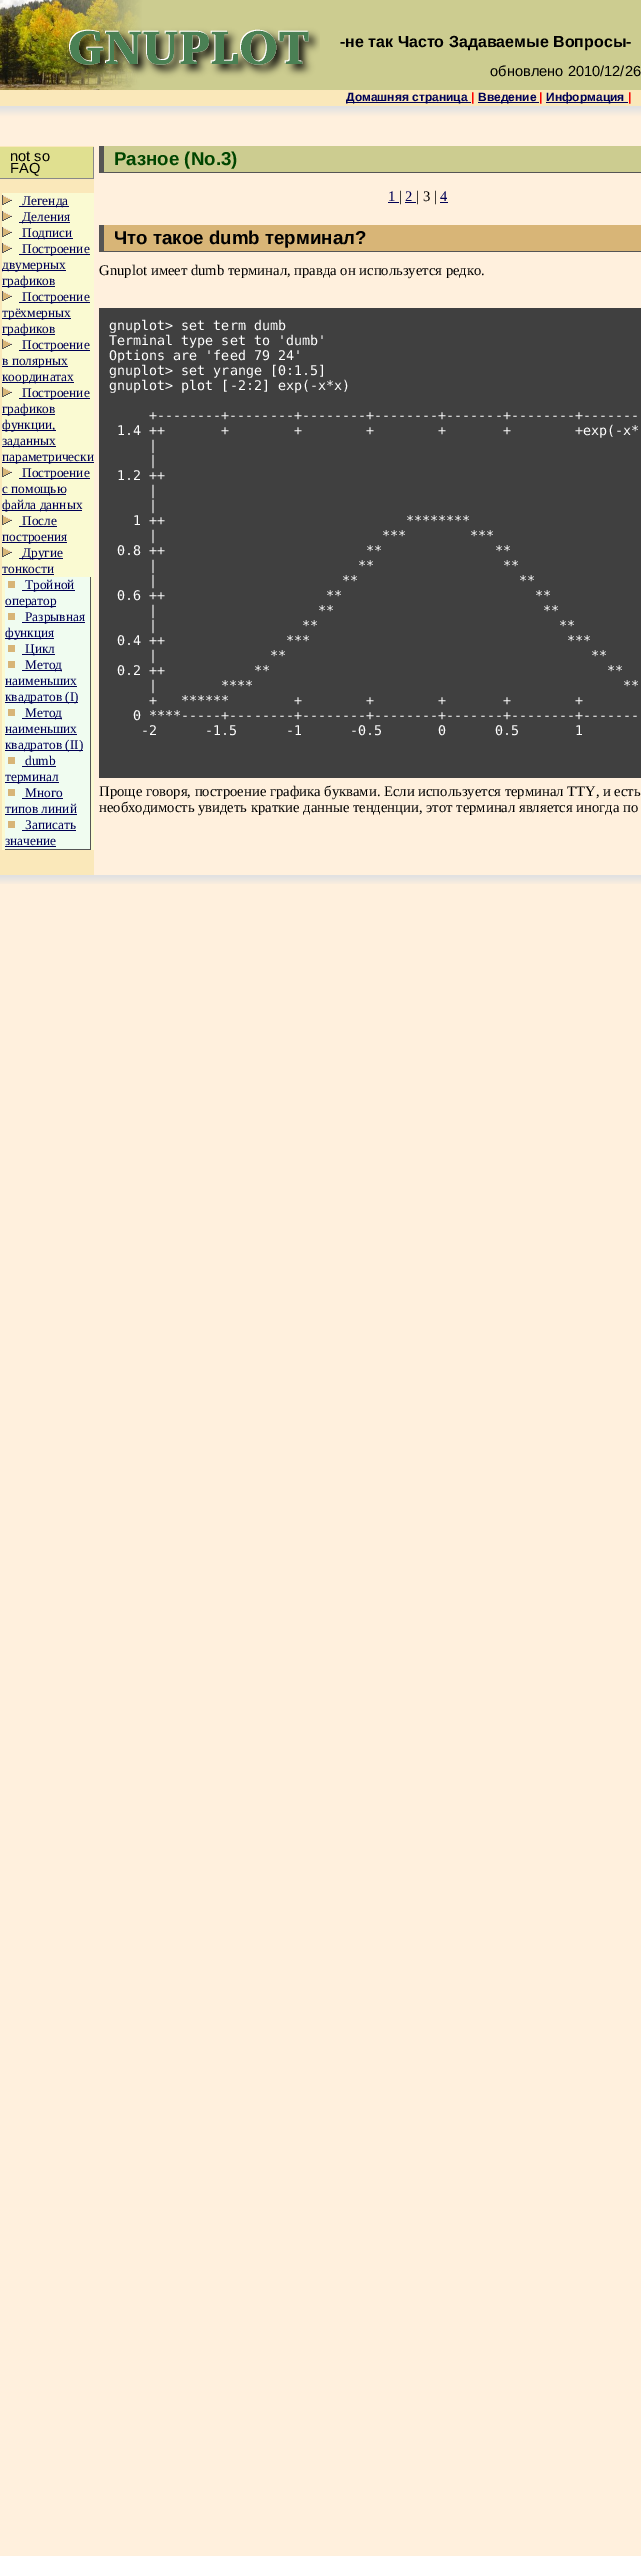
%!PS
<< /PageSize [641 2556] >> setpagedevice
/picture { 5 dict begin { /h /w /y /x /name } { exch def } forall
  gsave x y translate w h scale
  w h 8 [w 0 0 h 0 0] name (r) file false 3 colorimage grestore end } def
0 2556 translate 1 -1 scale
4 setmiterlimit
1 0.941 0.867 setrgbcolor
0 0 641 2556 rectfill
(img1.rgb) 0 0 320 90 picture
0.8 0.8 0.565 setrgbcolor
320 0 321 90 rectfill
/LiberationSans-Bold [16 0 0 -16 0 0] selectfont
0 setgray
340 47 moveto (-не так Часто Задаваемые Вопросы-) show
/LiberationSans-Regular [14.65 0 0 -14.65 0 0] selectfont
490 76 moveto (обновлено 2010/12/26) show
0.98 0.91 0.729 setrgbcolor
0 90 641 16 rectfill
0 0 0.333 setrgbcolor
346 102 125 1 rectfill
/LiberationSans-Bold [12 0 0 -12 0 0] selectfont
346 101 moveto (Домашняя страница) show
1 0 0 setrgbcolor
471 101 moveto (|) show
0 0 0.333 setrgbcolor
478 102 61 1 rectfill
478 101 moveto (Введение) show
1 0 0 setrgbcolor
539 101 moveto (|) show
0 0 0.333 setrgbcolor
546 102 82 1 rectfill
546 101 moveto (Информация) show
1 0 0 setrgbcolor
628 101 moveto (|) show
(img2.rgb) 0 106 641 12 picture
0.98 0.91 0.729 setrgbcolor
0 146 94 729 rectfill
0.878 0.878 0.565 setrgbcolor
0 147 93 31 rectfill
0.533 setgray
93 147 1 32 rectfill
0 178 94 1 rectfill
/LiberationSans-Regular [14.65 0 0 -14.65 0 0] selectfont
0 setgray
10 161 moveto (not so) show
10 173 moveto (FAQ) show
0.98 0.98 0.824 setrgbcolor
2 193 92 657 rectfill
(img3.rgb) 2 195 10 10 picture
0 0 0.333 setrgbcolor
19 206 50 1 rectfill
/LiberationSerif-Regular [13.35 0 0 -13.35 0 0] selectfont
22 205 moveto (Легенда) show
(img3.rgb) 2 211 10 10 picture
19 222 51 1 rectfill
22 221 moveto (Деления) show
(img3.rgb) 2 227 10 10 picture
19 238 54 1 rectfill
22 237 moveto (Подписи) show
(img3.rgb) 2 243 10 10 picture
19 254 71 1 rectfill
22 253 moveto (Построение) show
2 270 64 1 rectfill
2 269 moveto (двумерных) show
2 286 53 1 rectfill
2 285 moveto (графиков) show
(img3.rgb) 2 291 10 10 picture
19 302 71 1 rectfill
22 301 moveto (Построение) show
2 318 69 1 rectfill
2 317 moveto (трёхмерных) show
2 334 53 1 rectfill
2 333 moveto (графиков) show
(img3.rgb) 2 339 10 10 picture
19 350 71 1 rectfill
22 349 moveto (Построение) show
2 366 66 1 rectfill
2 365 moveto (в полярных) show
2 382 72 1 rectfill
2 381 moveto (координатах) show
(img3.rgb) 2 387 10 10 picture
19 398 71 1 rectfill
22 397 moveto (Построение) show
2 414 53 1 rectfill
2 413 moveto (графиков) show
2 430 54 1 rectfill
2 429 moveto (функции,) show
2 446 54 1 rectfill
2 445 moveto (заданных) show
2 462 92 1 rectfill
2 461 moveto (параметрически) show
(img3.rgb) 2 467 10 10 picture
19 478 71 1 rectfill
22 477 moveto (Построение) show
2 494 64 1 rectfill
2 493 moveto (с помощью) show
2 510 80 1 rectfill
2 509 moveto (файла данных) show
(img3.rgb) 2 515 10 10 picture
22 525 moveto (После) show
19 526 38 1 rectfill
2 542 65 1 rectfill
2 541 moveto (построения) show
(img3.rgb) 2 547 10 10 picture
19 558 44 1 rectfill
22 557 moveto (Другие) show
2 573 moveto (тонкости) show
2 574 52 1 rectfill
0.941 0.988 0.941 setrgbcolor
5 577 85 272 rectfill
0.333 setgray
90 577 1 273 rectfill
5 849 86 1 rectfill
0.847 0.71 0.467 setrgbcolor
8 581 7 7 rectfill
0 0 0.333 setrgbcolor
22 590 53 1 rectfill
25 589 moveto (Тройной) show
5 606 51 1 rectfill
5 605 moveto (оператор) show
0.847 0.71 0.467 setrgbcolor
8 613 7 7 rectfill
0 0 0.333 setrgbcolor
22 622 63 1 rectfill
25 621 moveto (Разрывная) show
5 638 49 1 rectfill
5 637 moveto (функция) show
0.847 0.71 0.467 setrgbcolor
8 645 7 7 rectfill
0 0 0.333 setrgbcolor
22 654 33 1 rectfill
25 653 moveto (Цикл) show
0.847 0.71 0.467 setrgbcolor
8 661 7 7 rectfill
0 0 0.333 setrgbcolor
22 670 40 1 rectfill
25 669 moveto (Метод) show
5 685 moveto (наименьших) show
5 686 72 1 rectfill
5 702 73 1 rectfill
5 701 moveto (квадратов \(I\)) show
0.847 0.71 0.467 setrgbcolor
8 709 7 7 rectfill
0 0 0.333 setrgbcolor
22 718 40 1 rectfill
25 717 moveto (Метод) show
5 733 moveto (наименьших) show
5 734 72 1 rectfill
5 750 78 1 rectfill
5 749 moveto (квадратов \(II\)) show
0.847 0.71 0.467 setrgbcolor
8 757 7 7 rectfill
0 0 0.333 setrgbcolor
25 765 moveto (dumb) show
22 766 34 1 rectfill
5 782 54 1 rectfill
5 781 moveto (терминал) show
0.847 0.71 0.467 setrgbcolor
8 789 7 7 rectfill
0 0 0.333 setrgbcolor
25 797 moveto (Много) show
22 798 41 1 rectfill
5 813 moveto (типов линий) show
5 814 72 1 rectfill
0.847 0.71 0.467 setrgbcolor
8 821 7 7 rectfill
0 0 0.333 setrgbcolor
25 829 moveto (Записать) show
22 830 54 1 rectfill
5 845 moveto (значение) show
5 846 51 1 rectfill
0.8 0.8 0.565 setrgbcolor
104 146 537 26 rectfill
0.333 setgray
99 172 542 1 rectfill
99 146 5 27 rectfill
/LiberationSans-Bold [18.7 0 0 -18.7 0 0] selectfont
0 0.271 0 setrgbcolor
114 165 moveto (Разное \(No.3\)) show
/LiberationSerif-Regular [14.65 0 0 -14.65 0 0] selectfont
0 0 0.333 setrgbcolor
388 201 moveto (1) show
388 202 11 1 rectfill
0 setgray
399 201 moveto (|) show
0 0 0.333 setrgbcolor
405 201 moveto (2) show
405 202 11 1 rectfill
0 setgray
416 201 moveto (| 3 |) show
0 0 0.333 setrgbcolor
440 201 moveto (4) show
440 202 8 1 rectfill
0.847 0.71 0.467 setrgbcolor
104 225 537 26 rectfill
0.333 setgray
99 251 542 1 rectfill
99 225 5 27 rectfill
/LiberationSans-Bold [18.7 0 0 -18.7 0 0] selectfont
0 setgray
114 244 moveto (Что такое dumb терминал?) show
/LiberationSerif-Regular [14.65 0 0 -14.65 0 0] selectfont
99 275 moveto (Gnuplot имеет dumb терминал, правда он используется редко.) show
0.251 setgray
99 308 542 470 rectfill
/DejaVuSansMono-Regular [13.35 0 0 -13.35 0 0] selectfont
1 setgray
109 330 moveto (gnuplot> set term dumb) show
109 345 moveto (Terminal type set to 'dumb') show
109 360 moveto (Options are 'feed 79 24') show
109 375 moveto (gnuplot> set yrange [0:1.5]) show
109 390 moveto (gnuplot> plot [-2:2] exp\(-x*x\)) show
149 420 moveto (+--------+--------+--------+--------+-------+--------+-------) show
117 435 moveto (1.4 ++       +        +        +        +       +        +exp\(-x*) show
149 450 moveto (|) show
149 465 moveto (|) show
117 480 moveto (1.2 ++) show
149 495 moveto (|) show
149 510 moveto (|) show
133 525 moveto (1 ++                              ********) show
149 540 moveto (|                            ***        ***) show
117 555 moveto (0.8 ++                         **              **) show
149 570 moveto (|                         **                **) show
149 585 moveto (|                       **                    **) show
117 600 moveto (0.6 ++                    **                        **) show
149 615 moveto (|                    **                          **) show
149 630 moveto (|                  **                              **) show
117 645 moveto (0.4 ++               ***                                ***) show
149 660 moveto (|              **                                      **) show
117 675 moveto (0.2 ++           **                                          **) show
149 690 moveto (|        ****                                              **) show
149 705 moveto (+   ******        +        +        +       +        +) show
133 720 moveto (0 ****-----+--------+--------+--------+-------+--------+-------) show
141 735 moveto (-2      -1.5      -1      -0.5       0      0.5       1) show
/LiberationSerif-Regular [14.65 0 0 -14.65 0 0] selectfont
0 setgray
99 796 moveto (Проще говоря, построение графика буквами. Если используется терминал TTY, и есть) show
99 812 moveto (необходимость увидеть краткие данные тенденции, этот терминал является иногда по) show
(img4.rgb) 0 875 641 9 picture
showpage
